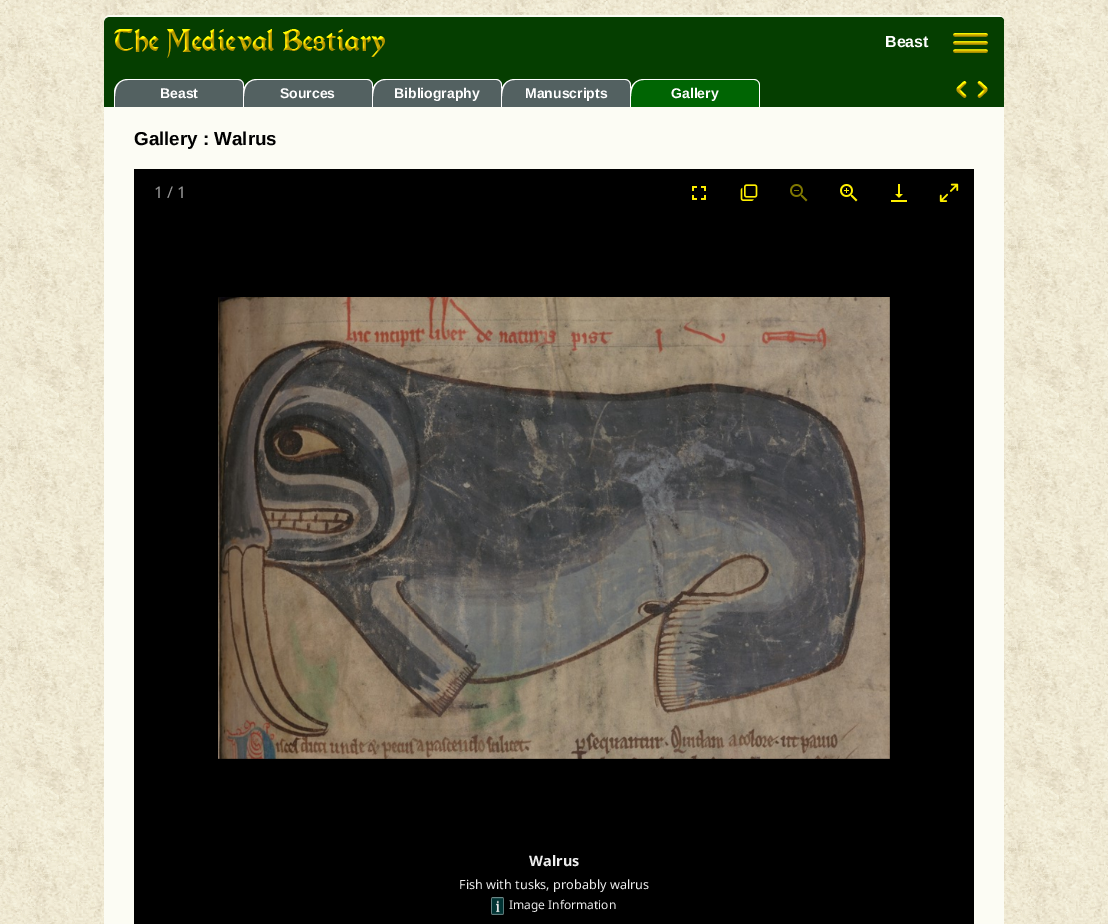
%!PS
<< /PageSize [1108 924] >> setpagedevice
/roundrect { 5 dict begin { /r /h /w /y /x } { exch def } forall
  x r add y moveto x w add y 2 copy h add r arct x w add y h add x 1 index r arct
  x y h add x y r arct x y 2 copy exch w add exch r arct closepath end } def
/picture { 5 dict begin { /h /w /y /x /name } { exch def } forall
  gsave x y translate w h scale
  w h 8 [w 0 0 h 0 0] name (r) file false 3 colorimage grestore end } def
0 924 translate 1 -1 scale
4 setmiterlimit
1 setgray
0 0 1108 924 rectfill
(img1.rgb) 0 0 1108 924 picture
0.988 0.988 0.957 setrgbcolor
104 15 900 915 6 roundrect fill
0.02 0.243 0 setrgbcolor
newpath 110 17 moveto 998 17 lineto 1001.5 17 1004 19.5 1004 23 curveto 1004 107 lineto 104 107 lineto 104 23 lineto 104 19.5 106.5 17 110 17 curveto closepath fill
(img2.rgb) 114 29 271 29 picture
/LiberationSans-Bold [16 0 0 -16 0 0] selectfont
1 setgray
885 47 moveto (Beast) show
0.02 0.243 0 setrgbcolor
937 17 67 55 4 roundrect fill
(img3.rgb) 953 33 35 20 picture
0.325 0.38 0.38 setrgbcolor
newpath 128 79 moveto 238 79 lineto 241.5 79 244 81.5 244 85 curveto 244 107 lineto 114 107 lineto 114 93 lineto 114 85.5 120.5 79 128 79 curveto closepath fill
1 setgray
newpath 128 79 moveto 238 79 lineto 241 79 244 82 244 85 curveto 244 107 lineto 114 107 lineto 114 93 lineto 114 85 120 79 128 79 curveto closepath 128 80 moveto 238 80 lineto 241 80 243 82 243 85 curveto 243 107 lineto 115 107 lineto 115 97 113 80 128 80 curveto closepath eofill
/LiberationSans-Bold [14 0 0 -14 0 0] selectfont
160 98 moveto (Beast) show
0.325 0.38 0.38 setrgbcolor
newpath 257 79 moveto 367 79 lineto 370.5 79 373 81.5 373 85 curveto 373 107 lineto 243 107 lineto 243 93 lineto 243 85.5 249.5 79 257 79 curveto closepath fill
1 setgray
newpath 257 79 moveto 367 79 lineto 370 79 373 82 373 85 curveto 373 107 lineto 243 107 lineto 243 93 lineto 243 85 249 79 257 79 curveto closepath 257 80 moveto 367 80 lineto 370 80 372 82 372 85 curveto 372 107 lineto 244 107 lineto 244 97 242 80 257 80 curveto closepath eofill
280 98 moveto (Sources) show
0.325 0.38 0.38 setrgbcolor
newpath 386 79 moveto 496 79 lineto 499.5 79 502 81.5 502 85 curveto 502 107 lineto 372 107 lineto 372 93 lineto 372 85.5 378.5 79 386 79 curveto closepath fill
1 setgray
newpath 386 79 moveto 496 79 lineto 499 79 502 82 502 85 curveto 502 107 lineto 372 107 lineto 372 93 lineto 372 85 378 79 386 79 curveto closepath 386 80 moveto 496 80 lineto 499 80 501 82 501 85 curveto 501 107 lineto 373 107 lineto 373 97 371 80 386 80 curveto closepath eofill
394 98 moveto (Bibliography) show
0.325 0.38 0.38 setrgbcolor
newpath 515 79 moveto 625 79 lineto 628.5 79 631 81.5 631 85 curveto 631 107 lineto 501 107 lineto 501 93 lineto 501 85.5 507.5 79 515 79 curveto closepath fill
1 setgray
newpath 515 79 moveto 625 79 lineto 628 79 631 82 631 85 curveto 631 107 lineto 501 107 lineto 501 93 lineto 501 85 507 79 515 79 curveto closepath 515 80 moveto 625 80 lineto 628 80 630 82 630 85 curveto 630 107 lineto 502 107 lineto 502 97 500 80 515 80 curveto closepath eofill
525 98 moveto (Manuscripts) show
0 0.396 0.012 setrgbcolor
newpath 644 79 moveto 754 79 lineto 757.5 79 760 81.5 760 85 curveto 760 107 lineto 630 107 lineto 630 93 lineto 630 85.5 636.5 79 644 79 curveto closepath fill
1 setgray
newpath 644 79 moveto 754 79 lineto 757 79 760 82 760 85 curveto 760 107 lineto 630 107 lineto 630 93 lineto 630 85 636 79 644 79 curveto closepath 644 80 moveto 754 80 lineto 757 80 759 82 759 85 curveto 759 107 lineto 631 107 lineto 631 97 629 80 644 80 curveto closepath eofill
671 98 moveto (Gallery) show
(img4.rgb) 956 81 11 17 picture
(img5.rgb) 977 81 11 17 picture
/LiberationSans-Bold [18.75 0 0 -18.75 0 0] selectfont
0 setgray
134 145 moveto (Gallery : Walrus) show
134 169 840 755 rectfill
/NotoSans-Regular [16 0 0 -16 0 0] selectfont
0.6 setgray
154 198 moveto (1 / 1) show
(img6.rgb) 692 186 14 14 picture
(img7.rgb) 740 184 18 17 picture
(img8.rgb) 790 184 18 18 picture
(img9.rgb) 840 184 18 18 picture
(img10.rgb) 891 184 16 18 picture
(img11.rgb) 939 183 20 19 picture
(img12.rgb) 218 297 672 462 picture
/NotoSans-Bold [14.5 0 0 -14.5 0 0] selectfont
0.933 setgray
529 866 moveto (Walrus) show
/NotoSans-Regular [12.7 0 0 -12.7 0 0] selectfont
459 889 moveto (Fish with tusks, probably walrus) show
(img13.rgb) 491 897 13 18 picture
/NotoSans-Regular [12 0 0 -12 0 0] selectfont
509 909 moveto (Image Information) show
showpage
